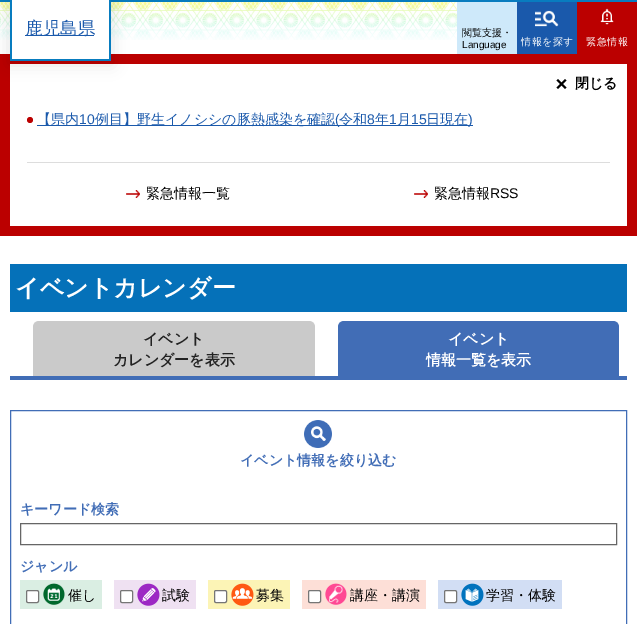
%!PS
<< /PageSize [637 624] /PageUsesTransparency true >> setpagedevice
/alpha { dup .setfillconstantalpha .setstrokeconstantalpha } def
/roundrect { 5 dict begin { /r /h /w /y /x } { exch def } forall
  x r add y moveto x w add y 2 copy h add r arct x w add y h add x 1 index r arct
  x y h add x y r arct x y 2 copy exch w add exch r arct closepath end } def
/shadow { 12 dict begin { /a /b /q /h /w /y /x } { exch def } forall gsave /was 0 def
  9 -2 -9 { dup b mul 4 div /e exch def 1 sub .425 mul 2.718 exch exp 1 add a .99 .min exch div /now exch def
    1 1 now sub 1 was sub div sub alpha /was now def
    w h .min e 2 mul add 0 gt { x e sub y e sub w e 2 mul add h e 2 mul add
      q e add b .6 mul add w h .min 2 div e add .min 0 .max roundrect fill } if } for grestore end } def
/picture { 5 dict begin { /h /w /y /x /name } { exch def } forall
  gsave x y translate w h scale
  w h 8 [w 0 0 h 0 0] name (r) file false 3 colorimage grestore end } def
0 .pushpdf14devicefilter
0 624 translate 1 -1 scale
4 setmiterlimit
1 setgray
0 0 637 624 rectfill
(img1.rgb) 0 2 457 38 picture
0.031 0.486 0.749 setrgbcolor
0 0 637 2 rectfill
0.733 0 0 setrgbcolor
0 54 637 182 rectfill
1 setgray
10 64 617 162 rectfill
0 setgray
8 -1 105 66 0 7.5 0.1 shadow
1 setgray
12 0 97 59 rectfill
0.031 0.486 0.749 setrgbcolor
109 0 2 61 rectfill
10 59 101 2 rectfill
10 0 2 61 rectfill
0.102 0.349 0.671 setrgbcolor
25 35 69 1 rectfill
/WenQuanYiZenHei-Medium [17.5 0 0 -17.5 0 0] selectfont
25 34 moveto (鹿児島県) show
0.808 0.914 0.98 setrgbcolor
457 2 60 52 rectfill
/WenQuanYiZenHei-Medium [10 0 0 -10 0 0] selectfont
0 setgray
462 36 moveto (閲覧支援・) show
/LiberationSans-Regular [10 0 0 -10 0 0] selectfont
462 48 moveto (Language) show
0.102 0.349 0.671 setrgbcolor
517 2 60 52 rectfill
(img2.rgb) 535 10 24 17 picture
/WenQuanYiZenHei-Medium [10 0 0 -10 0 0] selectfont
1 setgray
521 45 moveto 0.5 0 (情報を探す) ashow
0.733 0 0 setrgbcolor
577 2 60 52 rectfill
(img3.rgb) 600 8 14 17 picture
1 setgray
586 45 moveto 0.5 0 (緊急情報) ashow
0 setgray
newpath 558 79 moveto 566.5 87.5 lineto 565 89 lineto 556.5 80.5 lineto closepath fill
/WenQuanYiZenHei-Bold [14 0 0 -14 0 0] selectfont
575 88 moveto (閉じる) show
newpath 556.5 87.5 moveto 565 79 lineto 566.5 80.5 lineto 558 89 lineto closepath fill
0.733 0 0 setrgbcolor
newpath 30 120 3 0 360 arc closepath fill
0.102 0.349 0.671 setrgbcolor
37 125 436 1 rectfill
/WenQuanYiZenHei-Medium [14 0 0 -14 0 0] selectfont
37 124 moveto (【県内) show
/LiberationSans-Regular [14 0 0 -14 0 0] selectfont
79 124 moveto (10) show
/WenQuanYiZenHei-Medium [14 0 0 -14 0 0] selectfont
95 124 moveto (例目】野生イノシシの豚熱感染を確認) show
/LiberationSans-Regular [14 0 0 -14 0 0] selectfont
335 124 moveto (\() show
/WenQuanYiZenHei-Medium [14 0 0 -14 0 0] selectfont
339 124 moveto (令和) show
/LiberationSans-Regular [14 0 0 -14 0 0] selectfont
367 124 moveto (8) show
/WenQuanYiZenHei-Medium [14 0 0 -14 0 0] selectfont
375 124 moveto (年) show
/LiberationSans-Regular [14 0 0 -14 0 0] selectfont
389 124 moveto (1) show
/WenQuanYiZenHei-Medium [14 0 0 -14 0 0] selectfont
397 124 moveto (月) show
/LiberationSans-Regular [14 0 0 -14 0 0] selectfont
411 124 moveto (15) show
/WenQuanYiZenHei-Medium [14 0 0 -14 0 0] selectfont
426 124 moveto (日現在) show
/LiberationSans-Regular [14 0 0 -14 0 0] selectfont
468 124 moveto (\)) show
0.867 setgray
27 162 583 1 rectfill
(img4.rgb) 126 190 14 8 picture
/WenQuanYiZenHei-Medium [14 0 0 -14 0 0] selectfont
0 setgray
146 198 moveto (緊急情報一覧) show
(img5.rgb) 414 190 14 8 picture
434 198 moveto (緊急情報) show
/LiberationSans-Regular [14 0 0 -14 0 0] selectfont
490 198 moveto (RSS) show
0.02 0.443 0.725 setrgbcolor
10 264 617 48 rectfill
/WenQuanYiZenHei-Bold [24 0 0 -24 0 0] selectfont
1 setgray
15 296 moveto (イベントカレンダー) show
0.255 0.427 0.714 setrgbcolor
10 376 617 4 rectfill
0.792 setgray
newpath 39 321 moveto 309 321 lineto 312.5 321 315 323.5 315 327 curveto 315 376 lineto 33 376 lineto 33 327 lineto 33 323.5 35.5 321 39 321 curveto closepath fill
/WenQuanYiZenHei-Bold [15 0 0 -15 0 0] selectfont
0.133 setgray
143 344 moveto (イベント) show
113 365 moveto (カレンダーを表示) show
0.255 0.427 0.714 setrgbcolor
newpath 344 321 moveto 613 321 lineto 616.5 321 619 323.5 619 327 curveto 619 376 lineto 338 376 lineto 338 327 lineto 338 323.5 340.5 321 344 321 curveto closepath fill
1 setgray
448 344 moveto (イベント) show
426 365 moveto (情報一覧を表示) show
0.255 0.427 0.714 setrgbcolor
10.5 410.5 616 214 rectstroke
(img6.rgb) 304 420 28 28 picture
/WenQuanYiZenHei-Bold [14 0 0 -14 0 0] selectfont
240 465 moveto (イベント情報を絞り込む) show
20 514 moveto (キーワード検索) show
0.4 setgray
20.5 523.5 596 21 rectstroke
0.255 0.427 0.714 setrgbcolor
20 571 moveto (ジャンル) show
0.855 0.933 0.89 setrgbcolor
20 580 82 29 rectfill
1 setgray
26.5 590.5 12 12 1.5 roundrect gsave fill grestore
0.463 setgray
stroke
(img7.rgb) 43 583 22 22 picture
/WenQuanYiZenHei-Medium [14 0 0 -14 0 0] selectfont
0 setgray
68 600 moveto (催し) show
0.937 0.882 0.949 setrgbcolor
114 580 82 29 rectfill
1 setgray
120.5 590.5 12 12 1.5 roundrect gsave fill grestore
0.463 setgray
stroke
(img8.rgb) 137 583 23 23 picture
0 setgray
162 600 moveto (試験) show
0.988 0.957 0.714 setrgbcolor
208 580 82 29 rectfill
1 setgray
214.5 590.5 12 12 1.5 roundrect gsave fill grestore
0.463 setgray
stroke
(img9.rgb) 231 583 23 23 picture
0 setgray
256 600 moveto (募集) show
0.992 0.875 0.843 setrgbcolor
302 580 124 29 rectfill
1 setgray
308.5 590.5 12 12 1.5 roundrect gsave fill grestore
0.463 setgray
stroke
(img10.rgb) 325 583 22 22 picture
0 setgray
350 600 moveto (講座・講演) show
0.824 0.871 0.957 setrgbcolor
438 580 124 29 rectfill
1 setgray
444.5 590.5 12 12 1.5 roundrect gsave fill grestore
0.463 setgray
stroke
(img11.rgb) 461 583 23 23 picture
0 setgray
486 600 moveto (学習・体験) show
.poppdf14devicefilter showpage
